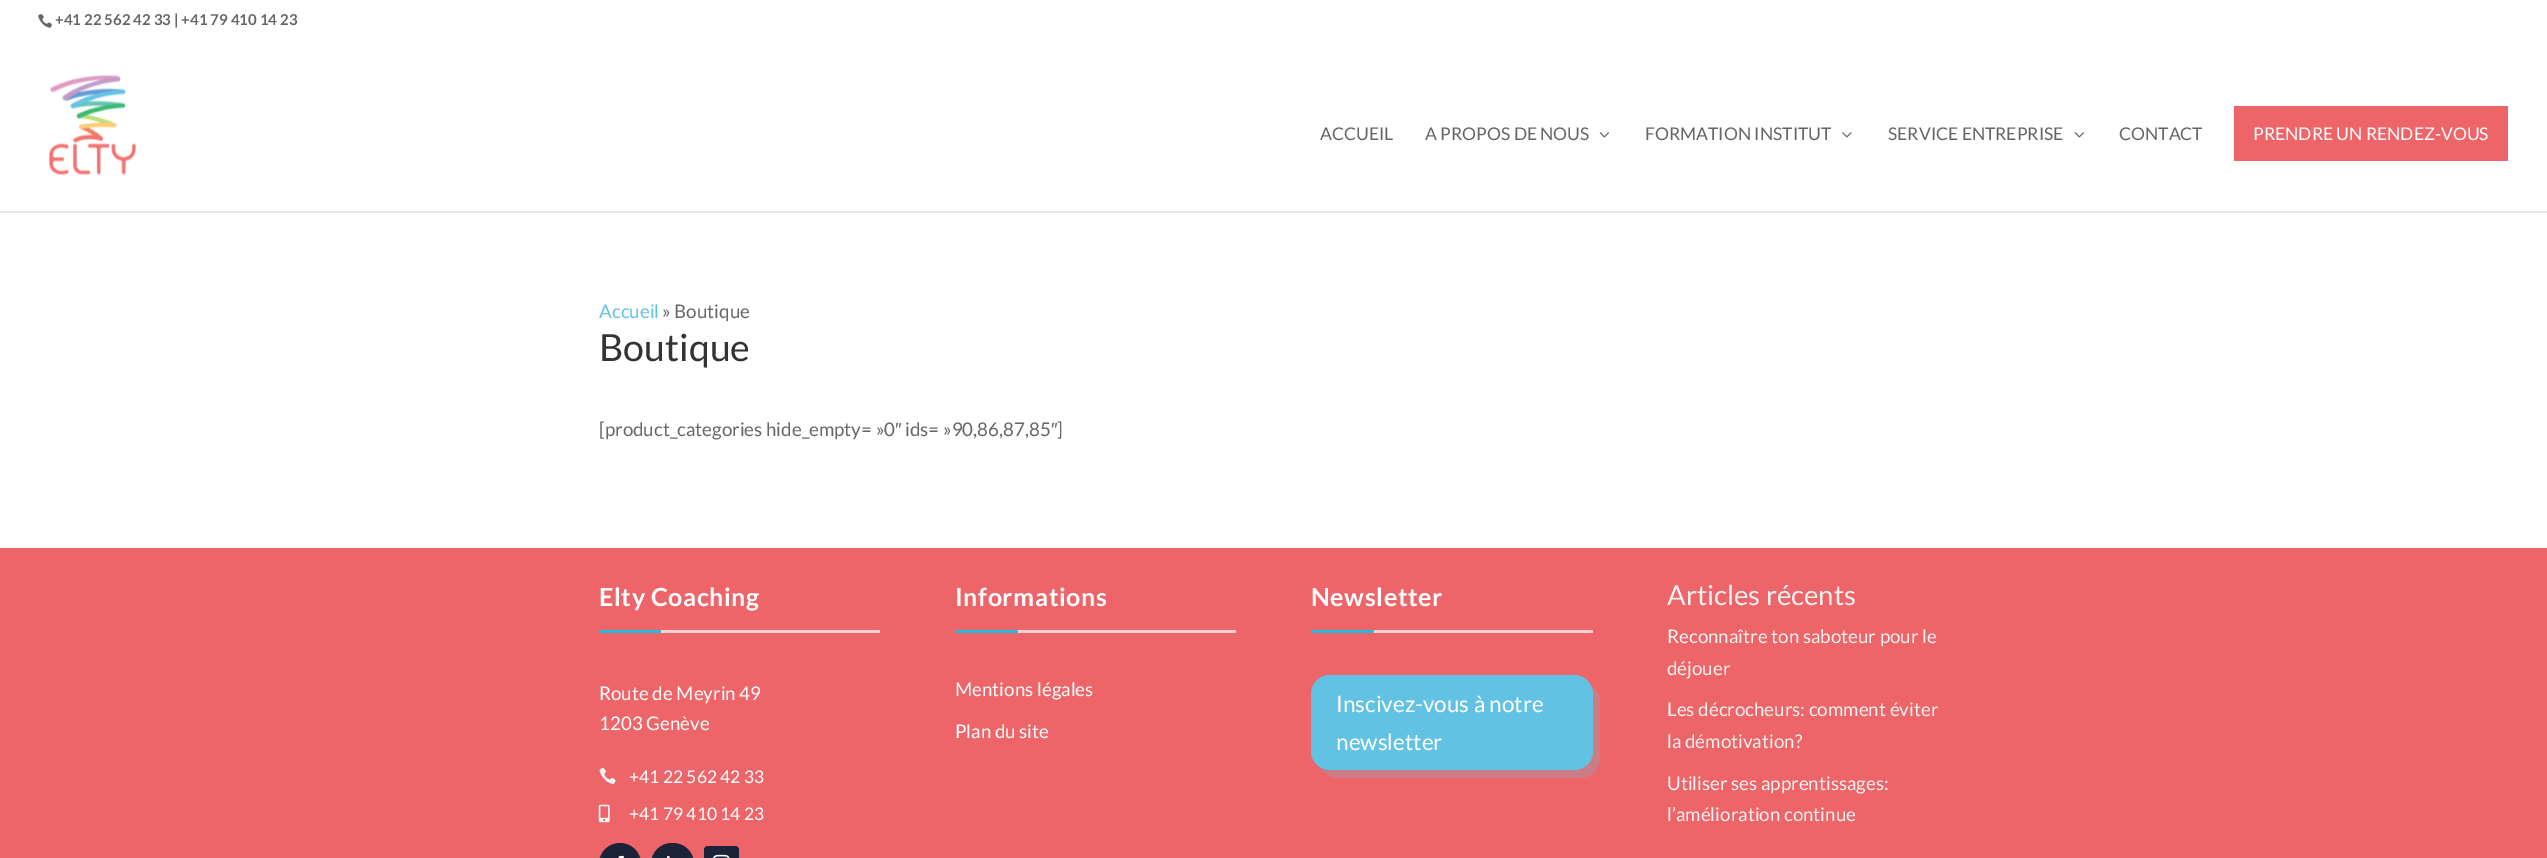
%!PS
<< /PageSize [2547 858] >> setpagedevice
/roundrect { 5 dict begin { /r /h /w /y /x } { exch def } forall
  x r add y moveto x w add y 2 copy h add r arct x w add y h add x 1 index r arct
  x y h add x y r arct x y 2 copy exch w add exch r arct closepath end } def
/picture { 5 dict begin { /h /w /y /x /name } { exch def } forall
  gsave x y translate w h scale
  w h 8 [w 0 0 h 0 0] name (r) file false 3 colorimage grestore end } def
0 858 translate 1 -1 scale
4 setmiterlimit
1 setgray
0 0 2547 858 rectfill
(img1.rgb) 38 14 14 14 picture
/Lato-Bold [15 0 0 -15 0 0] selectfont
0.4 setgray
55 25 moveto (+41 22 562 42 33 | +41 79 410 14 23) show
0.902 setgray
newpath 0 211 moveto 0 213 lineto 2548 213 lineto 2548 39 lineto 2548 211 lineto closepath fill
(img2.rgb) 49 75 87 100 picture
/Lato-Regular [17.5 0 0 -17.5 0 0] selectfont
0.4 setgray
1320 140 moveto (ACCUEIL) show
1425 140 moveto (A PROPOS DE NOUS) show
(img3.rgb) 1599 132 10 6 picture
1645 140 moveto (FORMATION INSTITUT) show
(img4.rgb) 1842 132 10 6 picture
1888 140 moveto (SERVICE ENTREPRISE) show
(img3.rgb) 2074 132 10 6 picture
2119 140 moveto (CONTACT) show
0.929 0.396 0.408 setrgbcolor
2234 106 274 55 rectfill
1 setgray
2253 140 moveto (PRENDRE UN RENDEZ-VOUS) show
/Lato-Regular [18.75 0 0 -18.75 0 0] selectfont
0.384 0.761 0.894 setrgbcolor
599 318 moveto (Accueil) show
0.4 setgray
662 318 moveto (» Boutique) show
/Lato-Regular [37.5 0 0 -37.5 0 0] selectfont
0.2 setgray
599 361 moveto (Boutique) show
/Lato-Regular [18.75 0 0 -18.75 0 0] selectfont
0.4 setgray
599 436 moveto ([product_categories hide_empty= »0) show
/LiberationSans-Regular [18.75 0 0 -18.75 0 0] selectfont
895 436 moveto (″) show
/Lato-Regular [18.75 0 0 -18.75 0 0] selectfont
905 436 moveto (ids= »90,86,87,85) show
/LiberationSans-Regular [18.75 0 0 -18.75 0 0] selectfont
1051 436 moveto (″) show
/Lato-Regular [18.75 0 0 -18.75 0 0] selectfont
1057 436 moveto (]) show
0.929 0.396 0.408 setrgbcolor
0 548 2547 310 rectfill
/Lato-Bold [25 0 0 -25 0 0] selectfont
1 setgray
599 606 moveto 0.6 0 (Elty Coaching) ashow
0.98 0.82 0.824 setrgbcolor
599 630 281 3 1.5 roundrect fill
0.153 0.722 0.867 setrgbcolor
599 630 62 3 1.5 roundrect fill
/Lato-Regular [18.75 0 0 -18.75 0 0] selectfont
1 setgray
599 700 moveto (Route de Meyrin 49) show
599 730 moveto (1203 Genève) show
(img5.rgb) 599 768 17 17 picture
/Lato-Regular [17.5 0 0 -17.5 0 0] selectfont
629 783 moveto (+41 22 562 42 33) show
(img6.rgb) 598 804 12 19 picture
629 820 moveto (+41 79 410 14 23) show
0.106 0.137 0.22 setrgbcolor
599 843 42 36 21 roundrect fill
(img7.rgb) 618 855 6 3 picture
651 843 43 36 21 roundrect fill
(img8.rgb) 666 855 4 3 picture
704 846 35 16 4 roundrect fill
(img9.rgb) 713 854 17 4 picture
/Lato-Bold [25 0 0 -25 0 0] selectfont
1 setgray
955 606 moveto 0.6 0 (Informations) ashow
0.98 0.82 0.824 setrgbcolor
955 630 281 3 1.5 roundrect fill
0.153 0.722 0.867 setrgbcolor
955 630 63 3 1.5 roundrect fill
/Lato-Regular [18.75 0 0 -18.75 0 0] selectfont
1 setgray
955 696 moveto (Mentions légales) show
955 738 moveto (Plan du site) show
/Lato-Bold [25 0 0 -25 0 0] selectfont
1311 606 moveto 0.6 0 (Newsletter) ashow
0.98 0.82 0.824 setrgbcolor
1311 630 282 3 1.5 roundrect fill
0.153 0.722 0.867 setrgbcolor
1311 630 63 3 1.5 roundrect fill
0.792 0.486 0.529 setrgbcolor
newpath 1321 768 moveto 1324 774 1331 778 1338 778 curveto 1581 778 lineto 1591 778 1600 769 1600 759 curveto 1600 702 lineto 1600 695 1596 689 1591 686 curveto 1592 688 1592 691 1592 694 curveto 1592 751 lineto 1592 762 1584 770 1574 770 curveto 1330 770 lineto 1327 770 1324 769 1321 768 curveto closepath fill
0.384 0.761 0.894 setrgbcolor
1311 675 282 95 19 roundrect fill
/Lato-Regular [22.5 0 0 -22.5 0 0] selectfont
1 setgray
1336 712 moveto (Inscivez-vous à notre) show
1336 750 moveto (newsletter) show
/Lato-Regular [27.5 0 0 -27.5 0 0] selectfont
0.949 setgray
1667 605 moveto (Articles récents) show
/Lato-Regular [18.75 0 0 -18.75 0 0] selectfont
1667 643 moveto (Reconnaître ton saboteur pour le) show
1667 675 moveto (déjouer) show
1667 716 moveto (Les décrocheurs: comment éviter) show
1667 748 moveto (la démotivation?) show
1667 790 moveto (Utiliser ses apprentissages:) show
1667 821 moveto (l’amélioration continue) show
showpage
